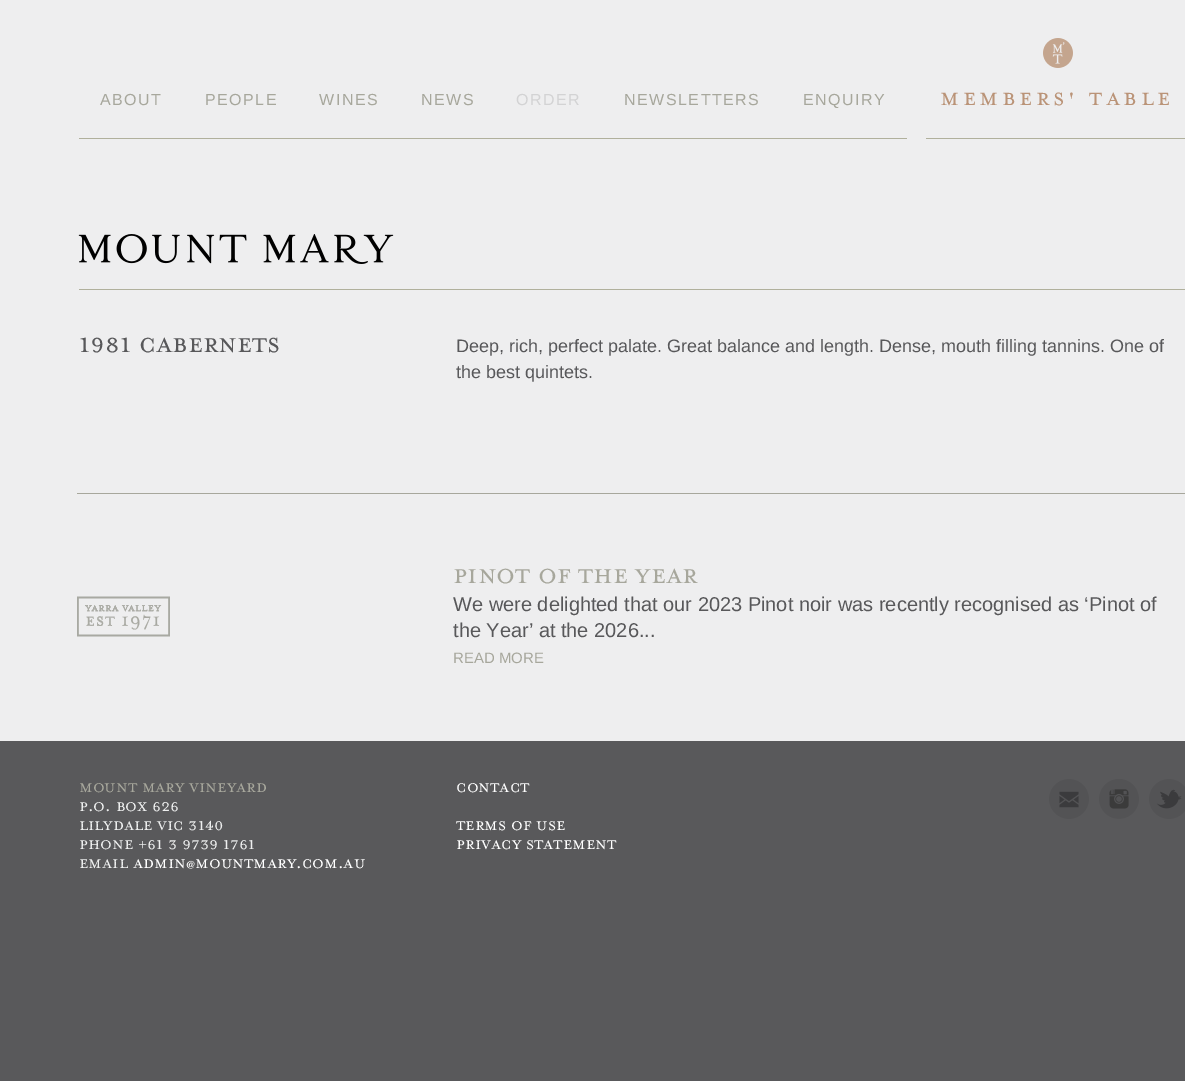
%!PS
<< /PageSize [1185 1081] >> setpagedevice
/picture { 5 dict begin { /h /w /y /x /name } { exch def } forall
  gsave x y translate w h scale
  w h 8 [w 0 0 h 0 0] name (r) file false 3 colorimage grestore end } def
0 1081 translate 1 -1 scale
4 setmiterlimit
0.349 0.349 0.357 setrgbcolor
0 0 1185 1081 rectfill
0.933 0.933 0.937 setrgbcolor
0 0 1185 741 rectfill
0.69 0.69 0.612 setrgbcolor
79 138 828 1 rectfill
/LiberationSans-Regular [16 0 0 -16 0 0] selectfont
0.655 0.655 0.612 setrgbcolor
100 105 moveto 1.5 0 (ABOUT) ashow
205 105 moveto 1.5 0 (PEOPLE) ashow
319 105 moveto 1.5 0 (WINES) ashow
421 105 moveto 1.5 0 (NEWS) ashow
0.827 0.827 0.831 setrgbcolor
516 105 moveto 1.5 0 (ORDER) ashow
0.655 0.655 0.612 setrgbcolor
624 105 moveto 1.5 0 (NEWSLETTERS) ashow
803 105 moveto 1.5 0 (ENQUIRY) ashow
0.69 0.69 0.612 setrgbcolor
926 138 259 1 rectfill
(img1.rgb) 1043 38 30 30 picture
/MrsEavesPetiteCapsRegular-Medium [28 0 0 -28 0 0] selectfont
0.729 0.576 0.467 setrgbcolor
940 105 moveto 3.6 0 (MEMBERS' TABLE) ashow
0.69 0.69 0.612 setrgbcolor
79 289 1106 1 rectfill
(img2.rgb) 78 234 316 30 picture
/MrsEavesPetiteCapsRegular-Medium [32 0 0 -32 0 0] selectfont
0.345 0.345 0.353 setrgbcolor
79 352 moveto (1981 CABERNETS) show
/LiberationSans-Regular [18 0 0 -18 0 0] selectfont
456 352 moveto (Deep, rich, perfect palate. Great balance and length. Dense, mouth filling tannins. One of) show
456 378 moveto (the best quintets.) show
0.655 0.655 0.612 setrgbcolor
77 493 1108 1 rectfill
(img3.rgb) 77 596 93 41 picture
/MrsEavesPetiteCapsRegular-Medium [32 0 0 -32 0 0] selectfont
453 583 moveto (PINOT OF THE YEAR) show
/LiberationSans-Regular [20 0 0 -20 0 0] selectfont
0.345 0.345 0.353 setrgbcolor
453 611 moveto (We were delighted that our 2023 Pinot noir was recently recognised as ‘Pinot of) show
453 637 moveto (the Year’ at the 2026...) show
/LiberationSans-Regular [15 0 0 -15 0 0] selectfont
0.655 0.655 0.612 setrgbcolor
453 663 moveto (READ MORE) show
/MrsEavesPetiteCapsRegular-Medium [20 0 0 -20 0 0] selectfont
79 792 moveto (MOUNT MARY VINEYARD) show
0.933 0.937 0.937 setrgbcolor
79 811 moveto (P.O. BOX 626) show
79 830 moveto (LILYDALE VIC 3140) show
79 849 moveto (PHONE +61 3 9739 1761) show
79 868 moveto (EMAIL) show
1 setgray
133 868 moveto (ADMIN@MOUNTMARY.COM.AU) show
456 792 moveto (CONTACT) show
456 830 moveto (TERMS OF USE) show
456 849 moveto (PRIVACY STATEMENT) show
(img4.rgb) 1049 779 40 40 picture
(img5.rgb) 1099 779 40 40 picture
(img6.rgb) 1149 779 36 40 picture
showpage
